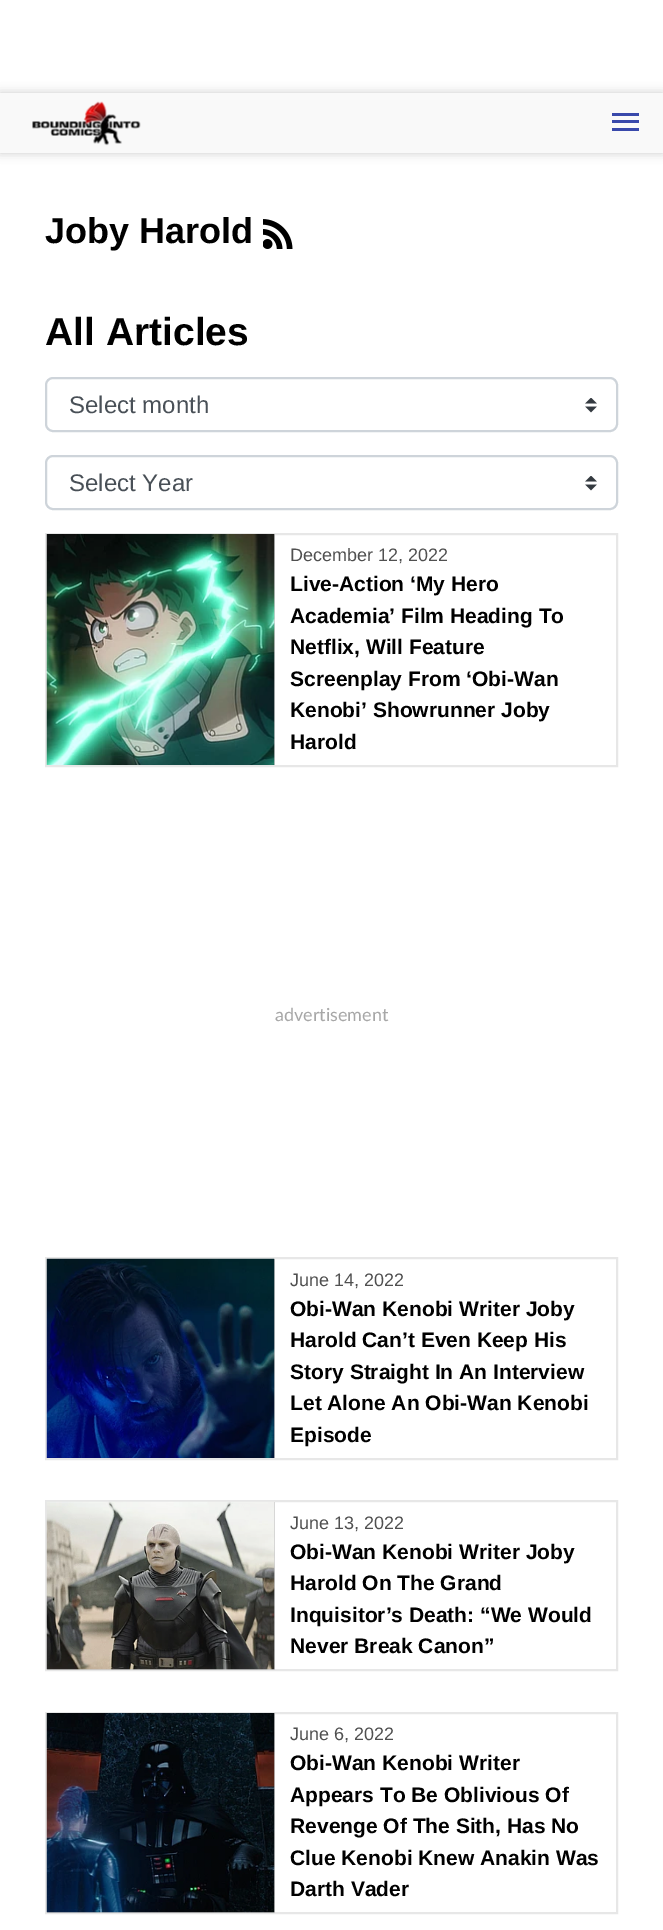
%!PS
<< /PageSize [663 1930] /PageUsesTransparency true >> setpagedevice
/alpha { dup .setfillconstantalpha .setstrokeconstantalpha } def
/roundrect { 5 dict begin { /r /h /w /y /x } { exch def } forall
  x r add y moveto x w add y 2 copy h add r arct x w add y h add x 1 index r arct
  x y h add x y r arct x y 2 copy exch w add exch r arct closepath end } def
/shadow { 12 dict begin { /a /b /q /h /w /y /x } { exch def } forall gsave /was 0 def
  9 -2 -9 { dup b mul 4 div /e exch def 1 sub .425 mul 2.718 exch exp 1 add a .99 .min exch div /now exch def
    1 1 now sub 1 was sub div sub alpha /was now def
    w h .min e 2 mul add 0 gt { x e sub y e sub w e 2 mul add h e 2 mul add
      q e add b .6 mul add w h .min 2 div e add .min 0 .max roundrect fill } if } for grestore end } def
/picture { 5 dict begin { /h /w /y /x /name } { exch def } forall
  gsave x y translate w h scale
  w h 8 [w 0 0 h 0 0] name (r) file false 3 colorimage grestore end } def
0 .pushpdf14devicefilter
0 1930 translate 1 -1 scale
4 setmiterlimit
1 setgray
0 0 663 1930 rectfill
0 setgray
0 93 663 60 0 5 0.2 shadow
0.976 setgray
0 93 663 60 rectfill
(img1.rgb) 32 101 109 45 picture
0.224 0.286 0.671 setrgbcolor
612 113 27 3 rectfill
612 120 27 3 rectfill
612 128 27 3 rectfill
/LiberationSans-Bold [36 0 0 -36 0 0] selectfont
0 setgray
45 243 moveto (Joby Harold) show
(img2.rgb) 263 219 30 30 picture
/LiberationSans-Bold [39 0 0 -39 0 0] selectfont
45 345 moveto (All Articles) show
(img3.rgb) 585 398 12 15 picture
0.808 0.831 0.855 setrgbcolor
2 setlinewidth
46 378 571 53 7 roundrect stroke
/LiberationSans-Regular [24 0 0 -24 0 0] selectfont
0.286 0.314 0.341 setrgbcolor
69 413 moveto (Select month) show
(img3.rgb) 585 476 12 15 picture
0.808 0.831 0.855 setrgbcolor
46 456 571 53 7 roundrect stroke
0.286 0.314 0.341 setrgbcolor
69 491 moveto (Select Year) show
0.906 setgray
46 534 571 232 rectstroke
0.808 setgray
274 534 1 231 rectfill
(img4.rgb) 46 534 229 231 picture
/LiberationSans-Regular [18 0 0 -18 0 0] selectfont
0.314 setgray
290 561 moveto (December 12, 2022) show
/LiberationSans-Bold [21 0 0 -21 0 0] selectfont
0 setgray
290 591 moveto (Live-Action ‘My Hero) show
290 623 moveto (Academia’ Film Heading To) show
290 654 moveto (Netflix, Will Feature) show
290 686 moveto (Screenplay From ‘Obi-Wan) show
290 717 moveto (Kenobi’ Showrunner Joby) show
290 749 moveto (Harold) show
/Lato-Regular [18 0 0 -18 0 0] selectfont
0.655 setgray
275 1021 moveto (advertisement) show
0.906 setgray
46 1258 571 201 rectstroke
0.808 setgray
274 1259 1 199 rectfill
(img5.rgb) 46 1258 229 200 picture
/LiberationSans-Regular [18 0 0 -18 0 0] selectfont
0.314 setgray
290 1286 moveto (June 14, 2022) show
/LiberationSans-Bold [21 0 0 -21 0 0] selectfont
0 setgray
290 1316 moveto (Obi-Wan Kenobi Writer Joby) show
290 1347 moveto (Harold Can’t Even Keep His) show
290 1379 moveto (Story Straight In An Interview) show
290 1410 moveto (Let Alone An Obi-Wan Kenobi) show
290 1442 moveto (Episode) show
0.906 setgray
46 1501 571 169 rectstroke
0.808 setgray
47 1502 228 168 rectfill
(img6.rgb) 46 1501 229 169 picture
/LiberationSans-Regular [18 0 0 -18 0 0] selectfont
0.314 setgray
290 1529 moveto (June 13, 2022) show
/LiberationSans-Bold [21 0 0 -21 0 0] selectfont
0 setgray
290 1559 moveto (Obi-Wan Kenobi Writer Joby) show
290 1590 moveto (Harold On The Grand) show
290 1622 moveto (Inquisitor’s Death: “We Would) show
290 1653 moveto (Never Break Canon”) show
0.906 setgray
46 1713 571 200 rectstroke
0.808 setgray
47 1713 228 200 rectfill
(img7.rgb) 46 1713 229 200 picture
/LiberationSans-Regular [18 0 0 -18 0 0] selectfont
0.314 setgray
290 1740 moveto (June 6, 2022) show
/LiberationSans-Bold [21 0 0 -21 0 0] selectfont
0 setgray
290 1770 moveto (Obi-Wan Kenobi Writer) show
290 1802 moveto (Appears To Be Oblivious Of) show
290 1833 moveto (Revenge Of The Sith, Has No) show
290 1865 moveto (Clue Kenobi Knew Anakin Was) show
290 1896 moveto (Darth Vader) show
.poppdf14devicefilter showpage
